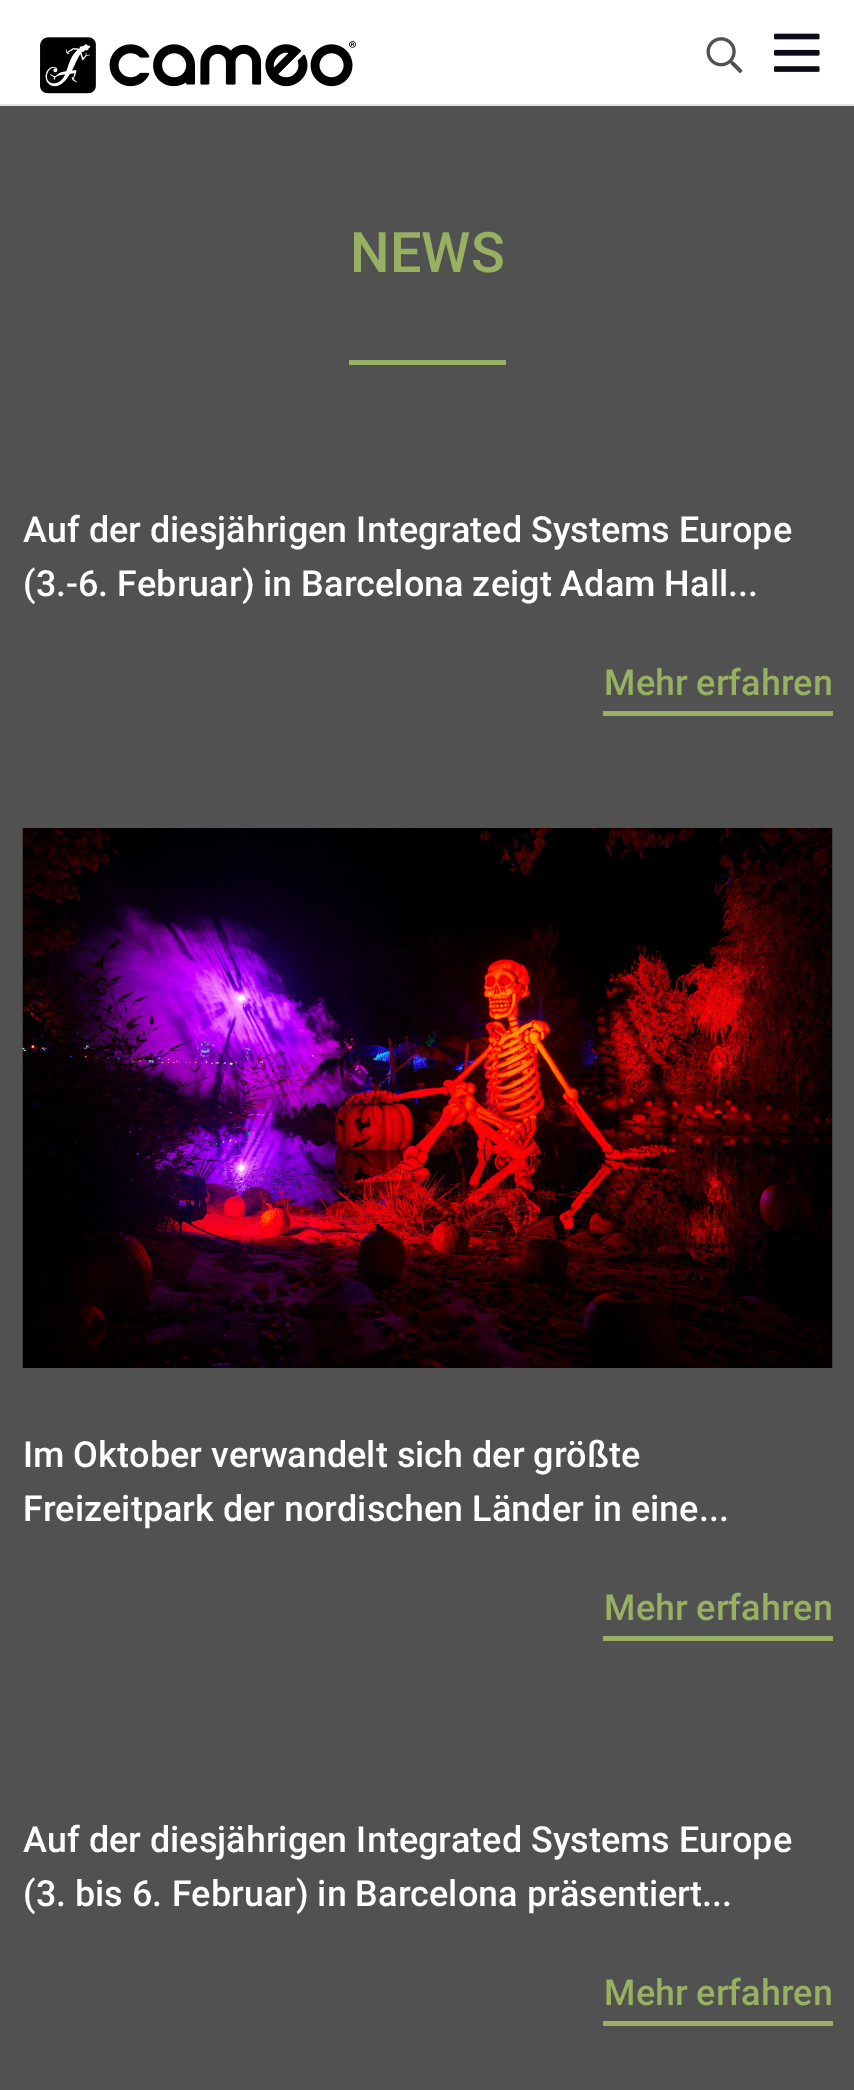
%!PS
<< /PageSize [854 2090] >> setpagedevice
/picture { 5 dict begin { /h /w /y /x /name } { exch def } forall
  gsave x y translate w h scale
  w h 8 [w 0 0 h 0 0] name (r) file false 3 colorimage grestore end } def
0 2090 translate 1 -1 scale
4 setmiterlimit
1 setgray
0 0 854 2090 rectfill
0.894 setgray
0 104 854 2 rectfill
(img1.rgb) 40 37 316 57 picture
(img2.rgb) 706 37 37 37 picture
(img3.rgb) 774 33 46 39 picture
0.318 setgray
0 106 854 1984 rectfill
/Roboto-Medium [56 0 0 -56 0 0] selectfont
0.592 0.69 0.38 setrgbcolor
350 272 moveto (NEWS) show
349 360 157 5 rectfill
/Roboto-Medium [36 0 0 -36 0 0] selectfont
1 setgray
23 542 moveto (Auf der diesjährigen Integrated Systems Europe) show
23 596 moveto (\(3.-6. Februar\) in Barcelona zeigt Adam Hall...) show
0.592 0.69 0.38 setrgbcolor
603 711 230 5 rectfill
604 695 moveto (Mehr erfahren) show
(img4.rgb) 22 828 811 540 picture
1 setgray
23 1467 moveto (Im Oktober verwandelt sich der größte) show
23 1521 moveto (Freizeitpark der nordischen Länder in eine...) show
0.592 0.69 0.38 setrgbcolor
603 1636 230 5 rectfill
604 1620 moveto (Mehr erfahren) show
1 setgray
23 1852 moveto (Auf der diesjährigen Integrated Systems Europe) show
23 1906 moveto (\(3. bis 6. Februar\) in Barcelona präsentiert...) show
0.592 0.69 0.38 setrgbcolor
603 2021 230 5 rectfill
604 2005 moveto (Mehr erfahren) show
showpage
